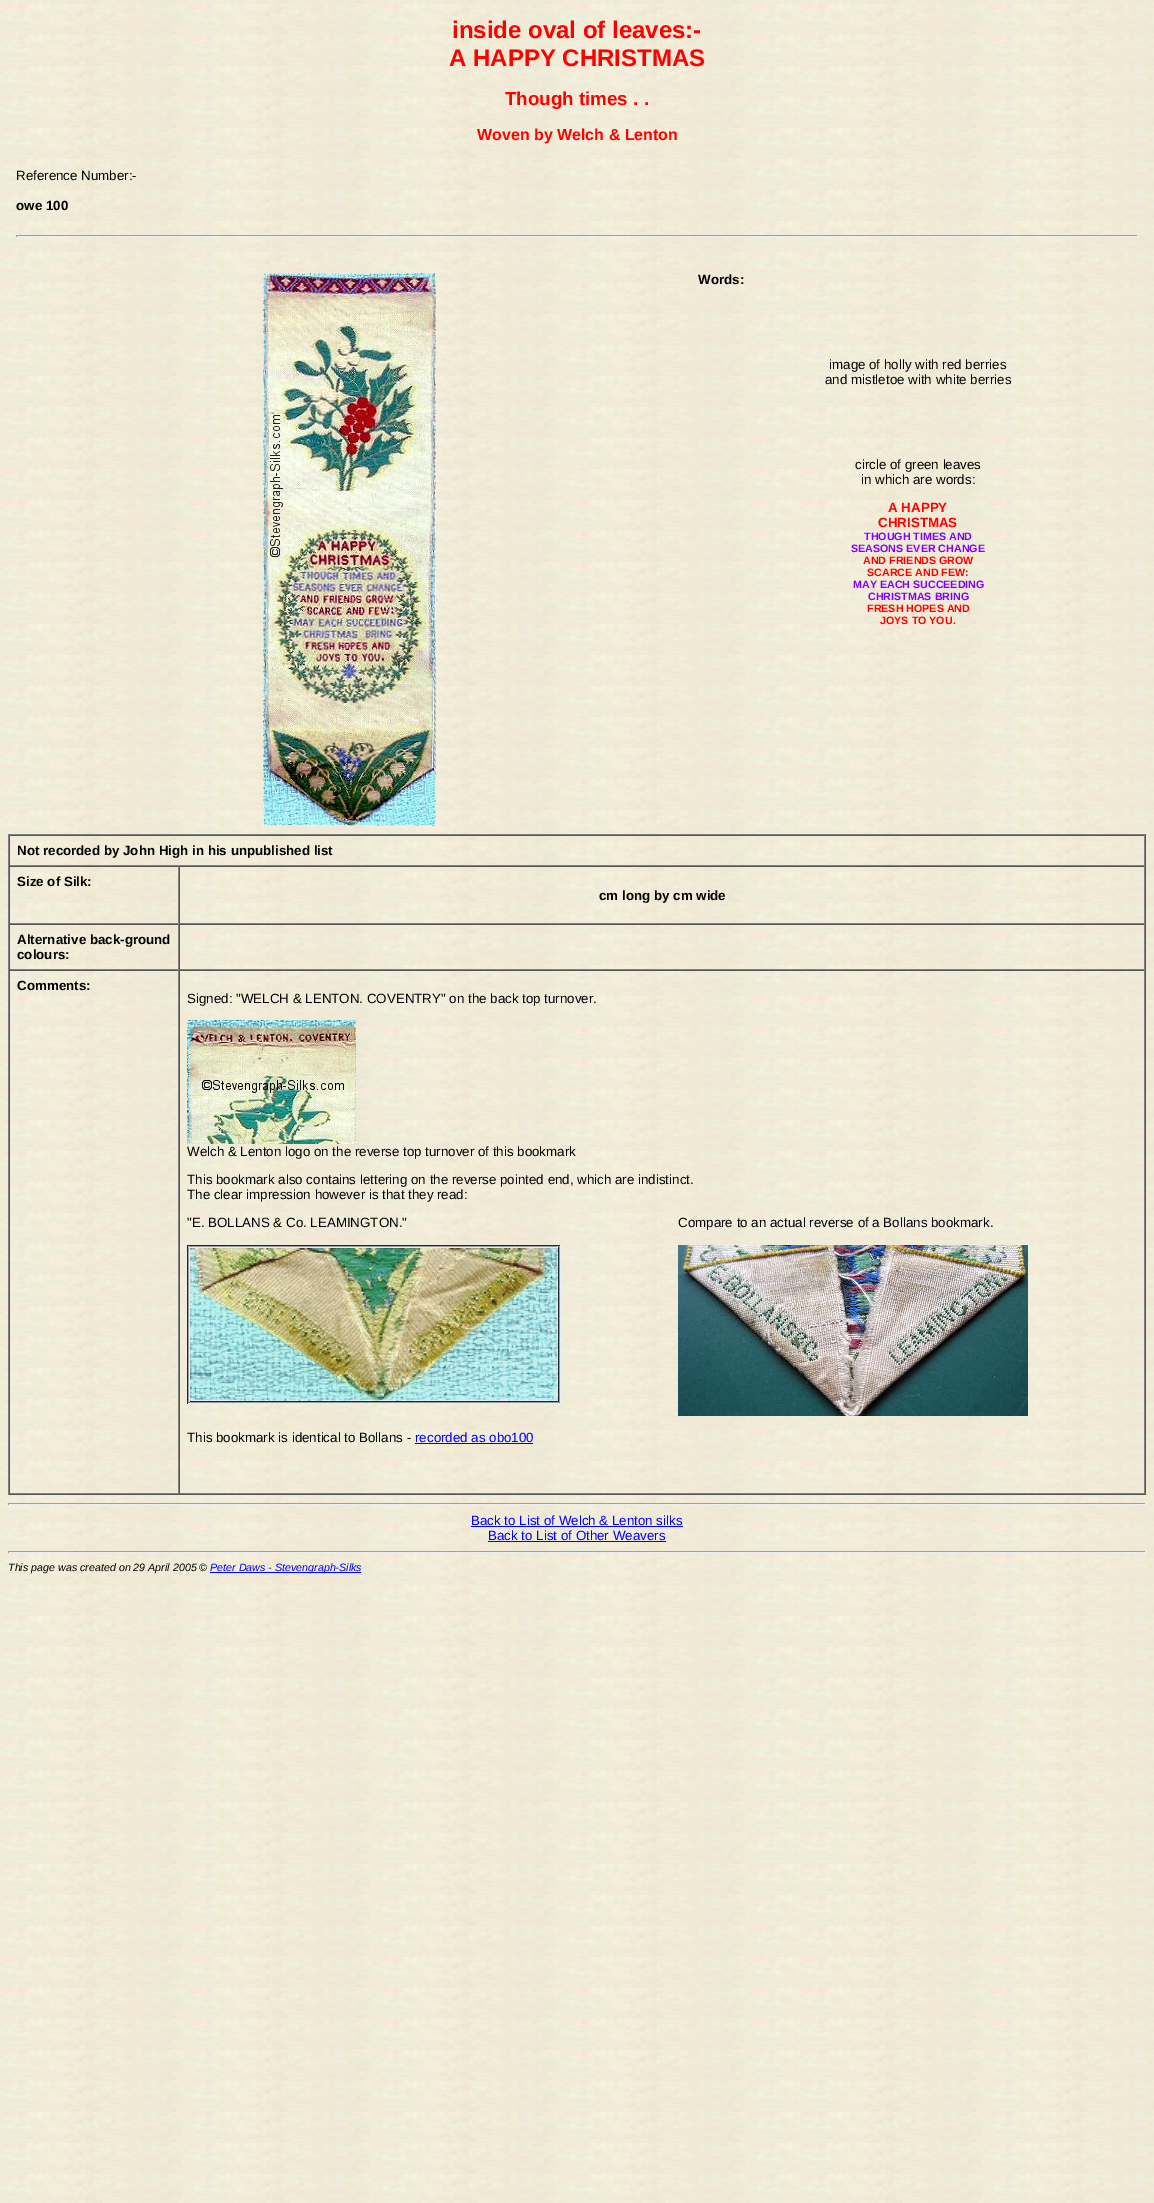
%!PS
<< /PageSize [1154 2203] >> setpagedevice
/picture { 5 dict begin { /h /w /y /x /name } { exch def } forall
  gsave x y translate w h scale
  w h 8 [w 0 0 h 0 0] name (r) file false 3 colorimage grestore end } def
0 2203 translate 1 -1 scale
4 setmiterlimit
1 setgray
0 0 1154 2203 rectfill
(img1.rgb) 0 0 1154 2203 picture
/LiberationSans-Bold [24 0 0 -24 0 0] selectfont
1 0 0 setrgbcolor
452 38 moveto (inside oval of leaves:-) show
449 66 moveto (A HAPPY CHRISTMAS) show
/LiberationSans-Bold [18.75 0 0 -18.75 0 0] selectfont
505 105 moveto (Though times . .) show
/LiberationSans-Bold [16 0 0 -16 0 0] selectfont
477 140 moveto (Woven by Welch & Lenton) show
/LiberationSans-Regular [13.35 0 0 -13.35 0 0] selectfont
0 setgray
16 180 moveto (Reference Number:-) show
/LiberationSans-Bold [13.35 0 0 -13.35 0 0] selectfont
16 210 moveto (owe 100) show
0.624 setgray
16 235 1122 1 rectfill
0.933 setgray
1137 235 1 2 rectfill
16 236 1122 1 rectfill
0.624 setgray
16 235 1 2 rectfill
(img2.rgb) 263 273 173 553 picture
0 setgray
698 284 moveto (Words:) show
/LiberationSans-Regular [13.35 0 0 -13.35 0 0] selectfont
829 369 moveto (image of holly with red berries) show
825 384 moveto (and mistletoe with white berries) show
855 469 moveto (circle of green leaves) show
861 484 moveto (in which are words:) show
/LiberationSans-Bold [13.35 0 0 -13.35 0 0] selectfont
1 0 0 setrgbcolor
888 512 moveto (A HAPPY) show
878 527 moveto (CHRISTMAS) show
/LiberationSans-Bold [10.7 0 0 -10.7 0 0] selectfont
0.502 0 1 setrgbcolor
864 540 moveto (THOUGH TIMES AND) show
851 552 moveto (SEASONS EVER CHANGE) show
1 0 0 setrgbcolor
863 564 moveto (AND FRIENDS GROW) show
867 576 moveto (SCARCE AND FEW:) show
0.502 0 1 setrgbcolor
853 588 moveto (MAY EACH SUCCEEDING) show
868 600 moveto (CHRISTMAS BRING) show
1 0 0 setrgbcolor
867 612 moveto (FRESH HOPES AND) show
880 624 moveto (JOYS TO YOU.) show
0.502 setgray
8 834 1138 1 rectfill
0.333 setgray
1145 834 1 661 rectfill
8 1494 1138 1 rectfill
0.502 setgray
8 834 1 661 rectfill
0.333 setgray
9 835 1136 1 rectfill
0.502 setgray
1144 835 1 31 rectfill
9 865 1136 1 rectfill
0.333 setgray
9 835 1 31 rectfill
/LiberationSans-Bold [13.35 0 0 -13.35 0 0] selectfont
0 setgray
17 855 moveto (Not recorded by John High in his unpublished list) show
0.333 setgray
9 866 1136 1 rectfill
0.502 setgray
178 866 1 58 rectfill
9 923 170 1 rectfill
0.333 setgray
9 866 1 58 rectfill
0 setgray
17 886 moveto (Size of Silk:) show
0.502 setgray
1144 866 1 58 rectfill
179 923 966 1 rectfill
0.333 setgray
179 866 1 58 rectfill
0 setgray
599 900 moveto (cm long by cm wide) show
0.333 setgray
9 924 1136 1 rectfill
0.502 setgray
178 924 1 46 rectfill
9 969 170 1 rectfill
0.333 setgray
9 924 1 46 rectfill
0 setgray
17 944 moveto (Alternative back-ground) show
17 959 moveto (colours:) show
0.502 setgray
1144 924 1 46 rectfill
179 969 966 1 rectfill
0.333 setgray
179 924 1 46 rectfill
9 970 1136 1 rectfill
0.502 setgray
178 970 1 524 rectfill
9 1493 170 1 rectfill
0.333 setgray
9 970 1 524 rectfill
0 setgray
17 990 moveto (Comments:) show
0.502 setgray
1144 970 1 524 rectfill
179 1493 966 1 rectfill
0.333 setgray
179 970 1 524 rectfill
/LiberationSans-Regular [13.35 0 0 -13.35 0 0] selectfont
0 setgray
187 1003 moveto (Signed: "WELCH & LENTON. COVENTRY" on the back top turnover.) show
(img3.rgb) 187 1020 169 124 picture
187 1156 moveto (Welch & Lenton logo on the reverse top turnover of this bookmark) show
187 1184 moveto (This bookmark also contains lettering on the reverse pointed end, which are indistinct.) show
187 1199 moveto (The clear impression however is that they read:) show
187 1227 moveto ("E. BOLLANS & Co. LEAMINGTON.") show
678 1227 moveto (Compare to an actual reverse of a Bollans bookmark.) show
(img4.rgb) 187 1245 374 159 picture
(img5.rgb) 678 1245 350 171 picture
187 1442 moveto (This bookmark is identical to Bollans -) show
0 0 1 setrgbcolor
415 1442 moveto (recorded as obo100) show
415 1443 118 1 rectfill
0.624 setgray
8 1503 1138 1 rectfill
0.933 setgray
1145 1503 1 2 rectfill
8 1504 1138 1 rectfill
0.624 setgray
8 1503 1 2 rectfill
0 0 1 setrgbcolor
471 1525 moveto (Back to List of Welch & Lenton silks) show
471 1526 212 1 rectfill
488 1540 moveto (Back to List of Other Weavers) show
488 1541 178 1 rectfill
0.624 setgray
8 1551 1138 1 rectfill
0.933 setgray
1145 1551 1 2 rectfill
8 1552 1138 1 rectfill
0.624 setgray
8 1551 1 2 rectfill
/LiberationSans-Italic [10.7 0 0 -10.7 0 0] selectfont
0 setgray
8 1571 moveto (This page was created on 29 April 2005 ©) show
0 0 1 setrgbcolor
210 1572 151 1 rectfill
210 1571 moveto (Peter Daws - Stevengraph-Silks) show
showpage
